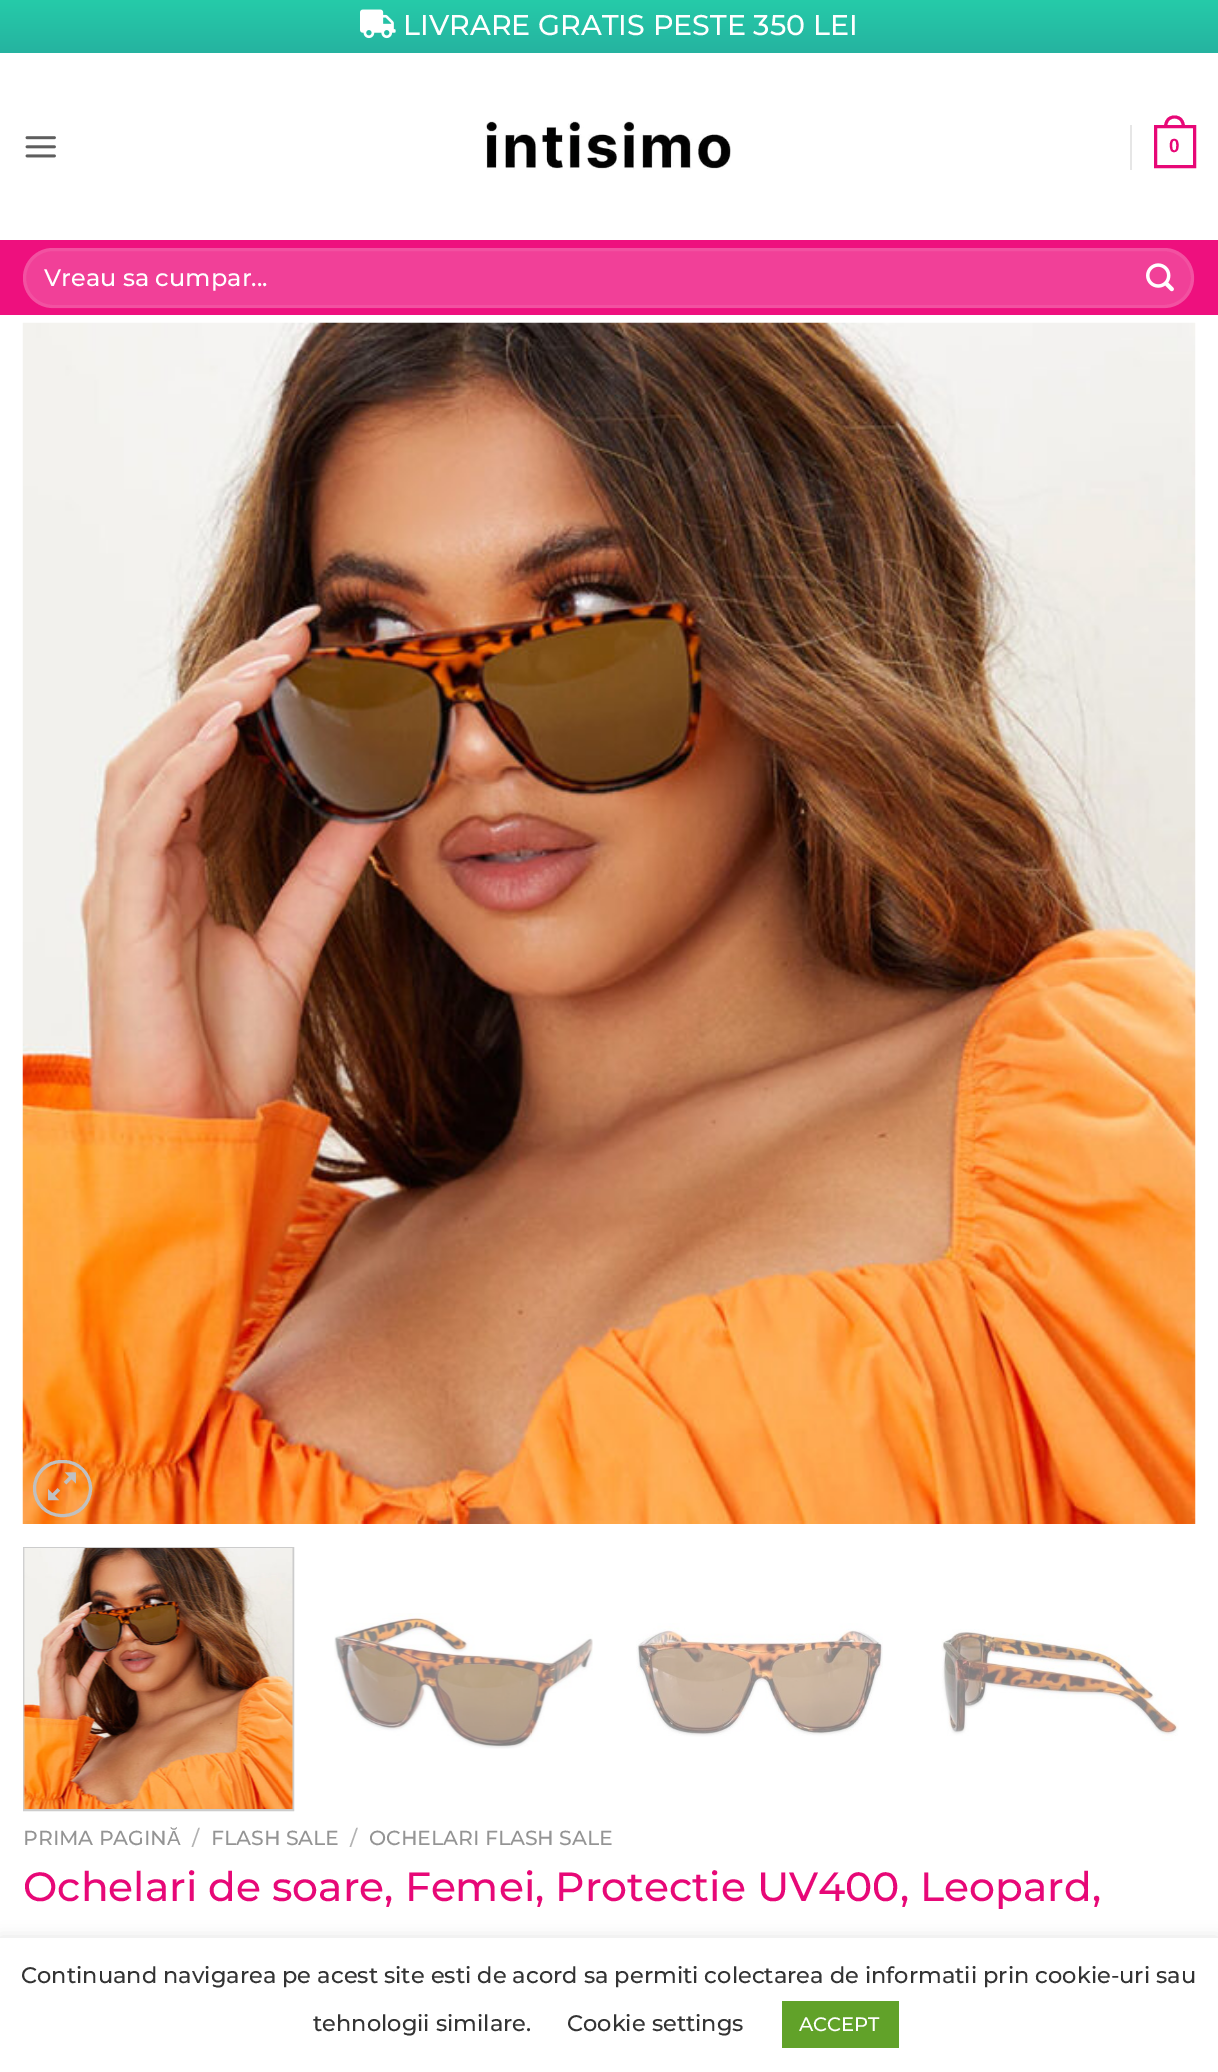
%!PS
<< /PageSize [1218 2072] /PageUsesTransparency true >> setpagedevice
/alpha { dup .setfillconstantalpha .setstrokeconstantalpha } def
/roundrect { 5 dict begin { /r /h /w /y /x } { exch def } forall
  x r add y moveto x w add y 2 copy h add r arct x w add y h add x 1 index r arct
  x y h add x y r arct x y 2 copy exch w add exch r arct closepath end } def
/shadow { 12 dict begin { /a /b /q /h /w /y /x } { exch def } forall gsave /was 0 def
  9 -2 -9 { dup b mul 4 div /e exch def 1 sub .425 mul 2.718 exch exp 1 add a .99 .min exch div /now exch def
    1 1 now sub 1 was sub div sub alpha /was now def
    w h .min e 2 mul add 0 gt { x e sub y e sub w e 2 mul add h e 2 mul add
      q e add b .6 mul add w h .min 2 div e add .min 0 .max roundrect fill } if } for grestore end } def
/picture { 5 dict begin { /h /w /y /x /name } { exch def } forall
  gsave x y translate w h scale
  w h 8 [w 0 0 h 0 0] name (r) file false 3 colorimage grestore end } def
0 .pushpdf14devicefilter
0 2072 translate 1 -1 scale
4 setmiterlimit
1 setgray
0 0 1218 2072 rectfill
gsave newpath 0 0 moveto 1218 0 lineto 1218 53 lineto 0 53 lineto closepath clip newpath
<< /ShadingType 2 /ColorSpace /DeviceRGB /Coords [609 0 609 53] /Extend [true true] /Function << /FunctionType 2 /Domain [0 1] /C0 [0.145 0.796 0.663] /C1 [0.145 0.702 0.627] /N 1 >> >> shfill grestore
(img1.rgb) 360 9 36 30 picture
/Montserrat-Medium [28.5 0 0 -28.5 0 0] selectfont
403 35 moveto (LIVRARE GRATIS PESTE 350 LEI) show
(img2.rgb) 25 136 31 22 picture
(img3.rgb) 485 121 246 49 picture
0.902 setgray
1130 125 2 45 rectfill
0.906 0.031 0.467 setrgbcolor
3 setlinewidth
1155.5 126.5 39 40 rectstroke
newpath 1174.5 115.5 moveto 1181.5 115.5 1185 121 1185 127.5 curveto 1164 127.5 lineto 1164 121 1167.5 115.5 1174.5 115.5 curveto closepath 1174.5 118.5 moveto 1180 118.5 1182 123 1182 127.5 curveto 1167 127.5 lineto 1167 123 1169 118.5 1174.5 118.5 curveto closepath eofill
/LiberationSans-Bold [19 0 0 -19 0 0] selectfont
1169 152 moveto (0) show
0.933 0.063 0.494 setrgbcolor
0 240 1218 75 rectfill
0.945 0.251 0.596 setrgbcolor
23 248 1171 60 30 roundrect fill
0.09 alpha
1 setgray
24.5 249.5 1168 57 28.5 roundrect stroke
/Montserrat-Medium [24 0 0 -24 0 0] selectfont
1 alpha
44 286 moveto (Vreau sa cumpar...) show
(img4.rgb) 1146 263 28 29 picture
(img5.rgb) 22 322 1174 1202 picture
0.753 setgray
34.5 1461.5 56 54 27 roundrect stroke
(img6.rgb) 48 1472 28 29 picture
0.8 setgray
2 setlinewidth
24 1548 269 262 rectstroke
(img7.rgb) 23 1548 270 261 picture
(img8.rgb) 334 1613 259 136 picture
(img9.rgb) 636 1623 247 114 picture
(img10.rgb) 941 1629 238 112 picture
/Montserrat-Medium [20.4 0 0 -20.4 0 0] selectfont
0.58 setgray
23 1845 moveto (PRIMA PAGIN) show
/LiberationSans-Regular [20.4 0 0 -20.4 0 0] selectfont
167 1845 moveto (Ă) show
/Montserrat-Medium [20.4 0 0 -20.4 0 0] selectfont
0.698 setgray
192 1845 moveto (/) show
0.58 setgray
211 1845 moveto (FLASH SALE) show
0.698 setgray
350 1845 moveto (/) show
0.58 setgray
369 1845 moveto (OCHELARI FLASH SALE) show
/Montserrat-Medium [40.8 0 0 -40.8 0 0] selectfont
0.906 0.031 0.467 setrgbcolor
23 1901 moveto (Ochelari de soare, Femei, Protectie UV400, Leopard,) show
0.675 0.671 0.671 setrgbcolor
0 1937 1218 135 0 7.5 0.3 shadow
1 setgray
0 1938 1218 134 rectfill
/Montserrat-Medium [22.5 0 0 -22.5 0 0] selectfont
0.2 setgray
21 1983 moveto (Continuand navigarea pe acest site esti de acord sa permiti colectarea de informatii prin cookie-uri sau) show
313 2031 moveto (tehnologii similare.) show
567 2031 moveto (Cookie settings) show
0.38 0.635 0.161 setrgbcolor
782 2001 117 47 rectfill
/Montserrat-Medium [19.5 0 0 -19.5 0 0] selectfont
1 setgray
799 2031 moveto (ACCEPT) show
.poppdf14devicefilter showpage
